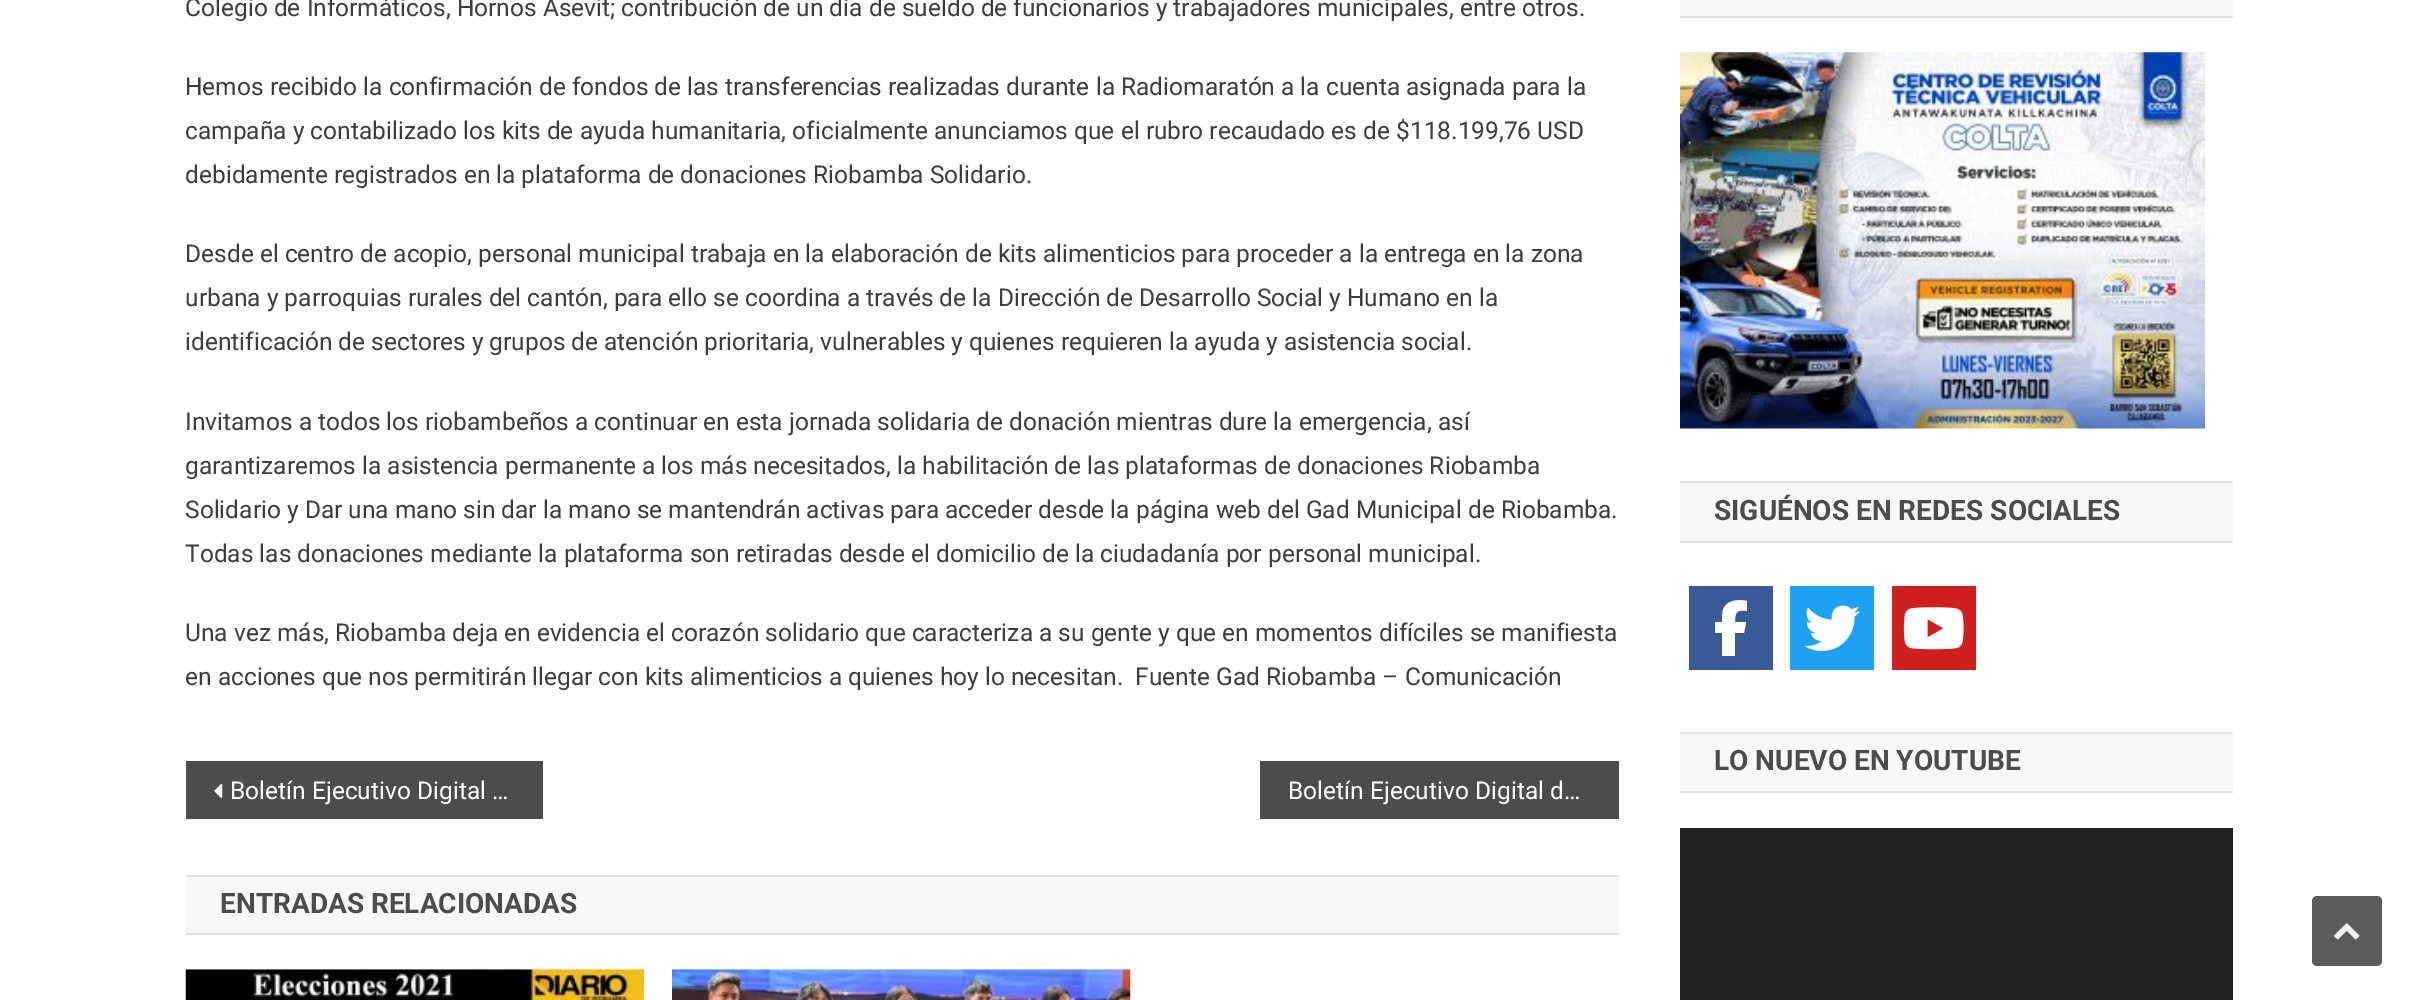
%!PS
<< /PageSize [2416 1000] >> setpagedevice
/roundrect { 5 dict begin { /r /h /w /y /x } { exch def } forall
  x r add y moveto x w add y 2 copy h add r arct x w add y h add x 1 index r arct
  x y h add x y r arct x y 2 copy exch w add exch r arct closepath end } def
/picture { 5 dict begin { /h /w /y /x /name } { exch def } forall
  gsave x y translate w h scale
  w h 8 [w 0 0 h 0 0] name (r) file false 3 colorimage grestore end } def
0 1000 translate 1 -1 scale
4 setmiterlimit
1 setgray
0 0 2416 1000 rectfill
/Roboto-Regular [24.5 0 0 -24.5 0 0] selectfont
0.239 setgray
185 16 moveto (Colegio de Informáticos, Hornos Asevit; contribución de un día de sueldo de funcionarios y trabajadores municipales, entre otros.) show
185 95 moveto (Hemos recibido la confirmación de fondos de las transferencias realizadas durante la Radiomaratón a la cuenta asignada para la) show
185 139 moveto (campaña y contabilizado los kits de ayuda humanitaria, oficialmente anunciamos que el rubro recaudado es de $118.199,76 USD) show
185 183 moveto (debidamente registrados en la plataforma de donaciones Riobamba Solidario.) show
185 262 moveto (Desde el centro de acopio, personal municipal trabaja en la elaboración de kits alimenticios para proceder a la entrega en la zona) show
185 306 moveto (urbana y parroquias rurales del cantón, para ello se coordina a través de la Dirección de Desarrollo Social y Humano en la) show
185 350 moveto (identificación de sectores y grupos de atención prioritaria, vulnerables y quienes requieren la ayuda y asistencia social.) show
185 430 moveto (Invitamos a todos los riobambeños a continuar en esta jornada solidaria de donación mientras dure la emergencia, así) show
185 474 moveto (garantizaremos la asistencia permanente a los más necesitados, la habilitación de las plataformas de donaciones Riobamba) show
185 518 moveto (Solidario y Dar una mano sin dar la mano se mantendrán activas para acceder desde la página web del Gad Municipal de Riobamba.) show
185 562 moveto (Todas las donaciones mediante la plataforma son retiradas desde el domicilio de la ciudadanía por personal municipal.) show
185 641 moveto (Una vez más, Riobamba deja en evidencia el corazón solidario que caracteriza a su gente y que en momentos difíciles se manifiesta) show
185 685 moveto (en acciones que nos permitirán llegar con kits alimenticios a quienes hoy lo necesitan.  Fuente Gad Riobamba – Comunicación) show
0.298 setgray
186 761 357 58 rectfill
(img1.rgb) 214 784 9 14 picture
1 setgray
230 799 moveto (Boletín Ejecutivo Digital …) show
0.298 setgray
1260 761 359 58 rectfill
1 setgray
1288 799 moveto (Boletín Ejecutivo Digital d…) show
0.969 setgray
186 877 1433 56 rectfill
0.882 setgray
186 875 1433 2 rectfill
186 933 1433 2 rectfill
/Roboto-Bold [28 0 0 -28 0 0] selectfont
0.298 setgray
220 913 moveto (ENTRADAS RELACIONADAS) show
(img2.rgb) 185 969 459 31 picture
(img3.rgb) 672 969 459 31 picture
0.969 setgray
1680 0 553 16 rectfill
0.882 setgray
1680 16 553 2 rectfill
(img4.rgb) 1680 52 525 377 picture
0.969 setgray
1680 483 553 58 rectfill
0.882 setgray
1680 481 553 2 rectfill
1680 541 553 2 rectfill
0.298 setgray
1714 520 moveto (SIGUÉNOS EN REDES SOCIALES) show
0.231 0.349 0.596 setrgbcolor
1689 586 84 84 rectfill
1 setgray
newpath 1722 633 moveto 1722 656 lineto 1722 633 lineto 1722 656 lineto 1735 656 lineto 1735 633 lineto 1744 633 lineto 1746 622 lineto 1735 622 lineto 1735 613 1736 609 1747 611 curveto 1747 601 lineto 1738 599 1726 600 1723 610 curveto 1722 614 1722 618 1722 622 curveto 1715 622 lineto 1715 633 lineto closepath fill
0.114 0.631 0.949 setrgbcolor
1790 586 84 84 rectfill
(img5.rgb) 1804 605 56 46 picture
0.804 0.125 0.122 setrgbcolor
1892 586 84 84 rectfill
(img6.rgb) 1903 607 61 43 picture
0.969 setgray
1680 734 553 57 rectfill
0.882 setgray
1680 732 553 2 rectfill
1680 791 553 2 rectfill
0.298 setgray
1714 770 moveto (LO NUEVO EN YOUTUBE) show
0.133 setgray
1680 828 553 172 rectfill
0.361 setgray
2312 896 70 70 5 roundrect fill
(img7.rgb) 2334 923 26 17 picture
showpage
